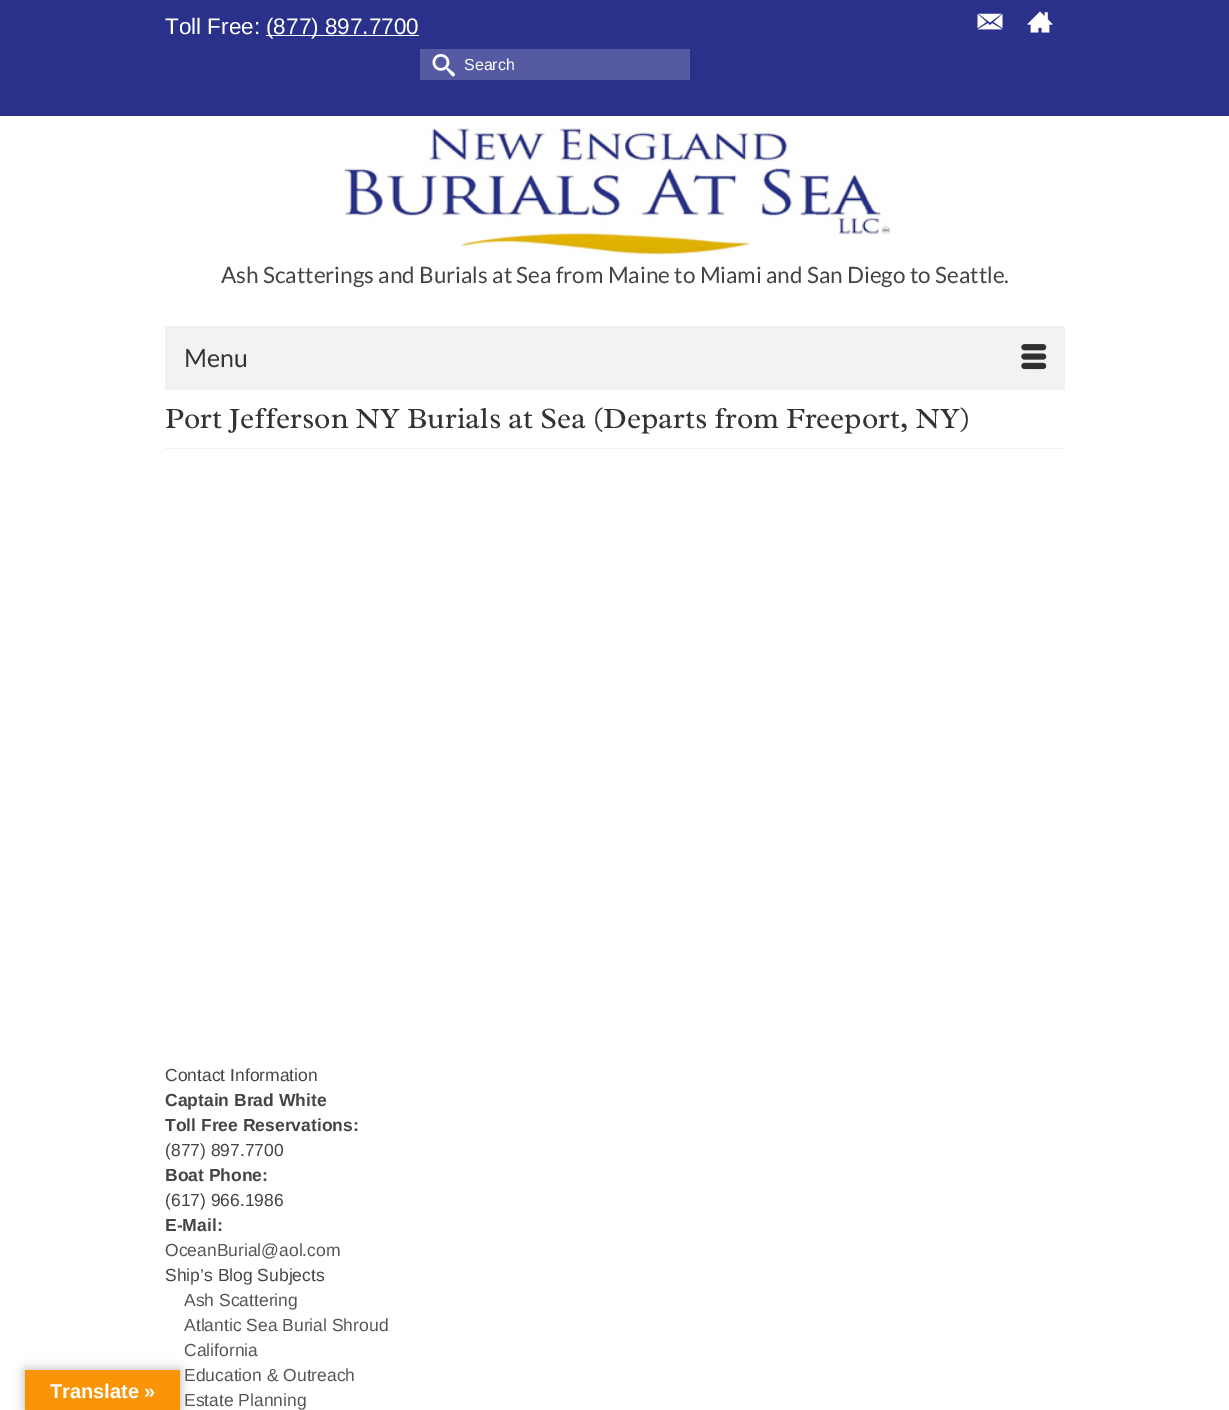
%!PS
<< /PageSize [1229 1410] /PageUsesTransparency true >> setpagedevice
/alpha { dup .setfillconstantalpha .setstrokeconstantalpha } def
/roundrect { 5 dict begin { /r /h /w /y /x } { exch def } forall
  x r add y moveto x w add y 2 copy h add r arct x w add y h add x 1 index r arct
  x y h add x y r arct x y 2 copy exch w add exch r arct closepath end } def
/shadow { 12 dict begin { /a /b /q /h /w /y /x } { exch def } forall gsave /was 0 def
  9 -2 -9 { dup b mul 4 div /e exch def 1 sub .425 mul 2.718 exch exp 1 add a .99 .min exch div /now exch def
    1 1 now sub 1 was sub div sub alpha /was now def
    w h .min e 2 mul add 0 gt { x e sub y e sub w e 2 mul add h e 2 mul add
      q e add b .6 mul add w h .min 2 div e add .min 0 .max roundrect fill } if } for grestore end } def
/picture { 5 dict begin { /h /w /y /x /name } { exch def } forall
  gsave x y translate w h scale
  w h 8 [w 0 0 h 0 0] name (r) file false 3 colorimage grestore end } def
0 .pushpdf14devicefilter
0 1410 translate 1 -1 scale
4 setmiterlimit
1 setgray
0 0 1229 1410 rectfill
0 setgray
25 1370 155 40 0 5.5 0.3 shadow
0.973 0.58 0.024 setrgbcolor
25 1370 155 40 rectfill
/LiberationSans-Bold [20 0 0 -20 0 0] selectfont
1 setgray
50 1398 moveto (Translate ») show
0.165 0.192 0.545 setrgbcolor
0 0 1229 116 rectfill
/LiberationSans-Regular [22.5 0 0 -22.5 0 0] selectfont
1 setgray
165 34 moveto (Toll Free:) show
266 35 153 1 rectfill
266 34 moveto (\(877\) 897.7700) show
0.333 0.353 0.635 setrgbcolor
420 49 270 31 rectfill
(img1.rgb) 432 53 23 24 picture
/LiberationSans-Regular [16 0 0 -16 0 0] selectfont
1 setgray
464 70 moveto (Search) show
(img2.rgb) 977 13 26 17 picture
(img3.rgb) 1027 11 26 22 picture
(img4.rgb) 343 128 548 128 picture
/Lato-Regular [22.5 0 0 -22.5 0 0] selectfont
0.267 setgray
221 283 moveto (Ash Scatterings and Burials at Sea from Maine to Miami and San Diego to Seattle.) show
0.949 setgray
165 326 900 64 rectfill
/Lato-Regular [25 0 0 -25 0 0] selectfont
0.2 setgray
184 367 moveto (Menu) show
(img5.rgb) 1021 344 26 26 picture
0.949 setgray
165 448 900 1 rectfill
/Radley-Regular [30 0 0 -30 0 0] selectfont
0.2 setgray
165 428 moveto (Port Jefferson NY Burials at Sea \(Departs from Freeport, NY\)) show
/LiberationSans-Regular [17.5 0 0 -17.5 0 0] selectfont
0.267 setgray
165 1081 moveto (Contact Information) show
/LiberationSans-Bold [17.5 0 0 -17.5 0 0] selectfont
165 1106 moveto (Captain Brad White) show
165 1131 moveto (Toll Free Reservations:) show
/LiberationSans-Regular [17.5 0 0 -17.5 0 0] selectfont
165 1156 moveto (\(877\) 897.7700) show
/LiberationSans-Bold [17.5 0 0 -17.5 0 0] selectfont
165 1181 moveto (Boat Phone:) show
/LiberationSans-Regular [17.5 0 0 -17.5 0 0] selectfont
165 1206 moveto (\(617\) 966.1986) show
/LiberationSans-Bold [17.5 0 0 -17.5 0 0] selectfont
165 1231 moveto (E-Mail:) show
/LiberationSans-Regular [17.5 0 0 -17.5 0 0] selectfont
0.333 setgray
165 1256 moveto (OceanBurial@aol.com) show
0.267 setgray
165 1281 moveto (Ship’s Blog Subjects) show
0.333 setgray
184 1306 moveto (Ash Scattering) show
184 1331 moveto (Atlantic Sea Burial Shroud) show
184 1356 moveto (California) show
184 1381 moveto (Education & Outreach) show
184 1406 moveto (Estate Planning) show
.poppdf14devicefilter showpage
